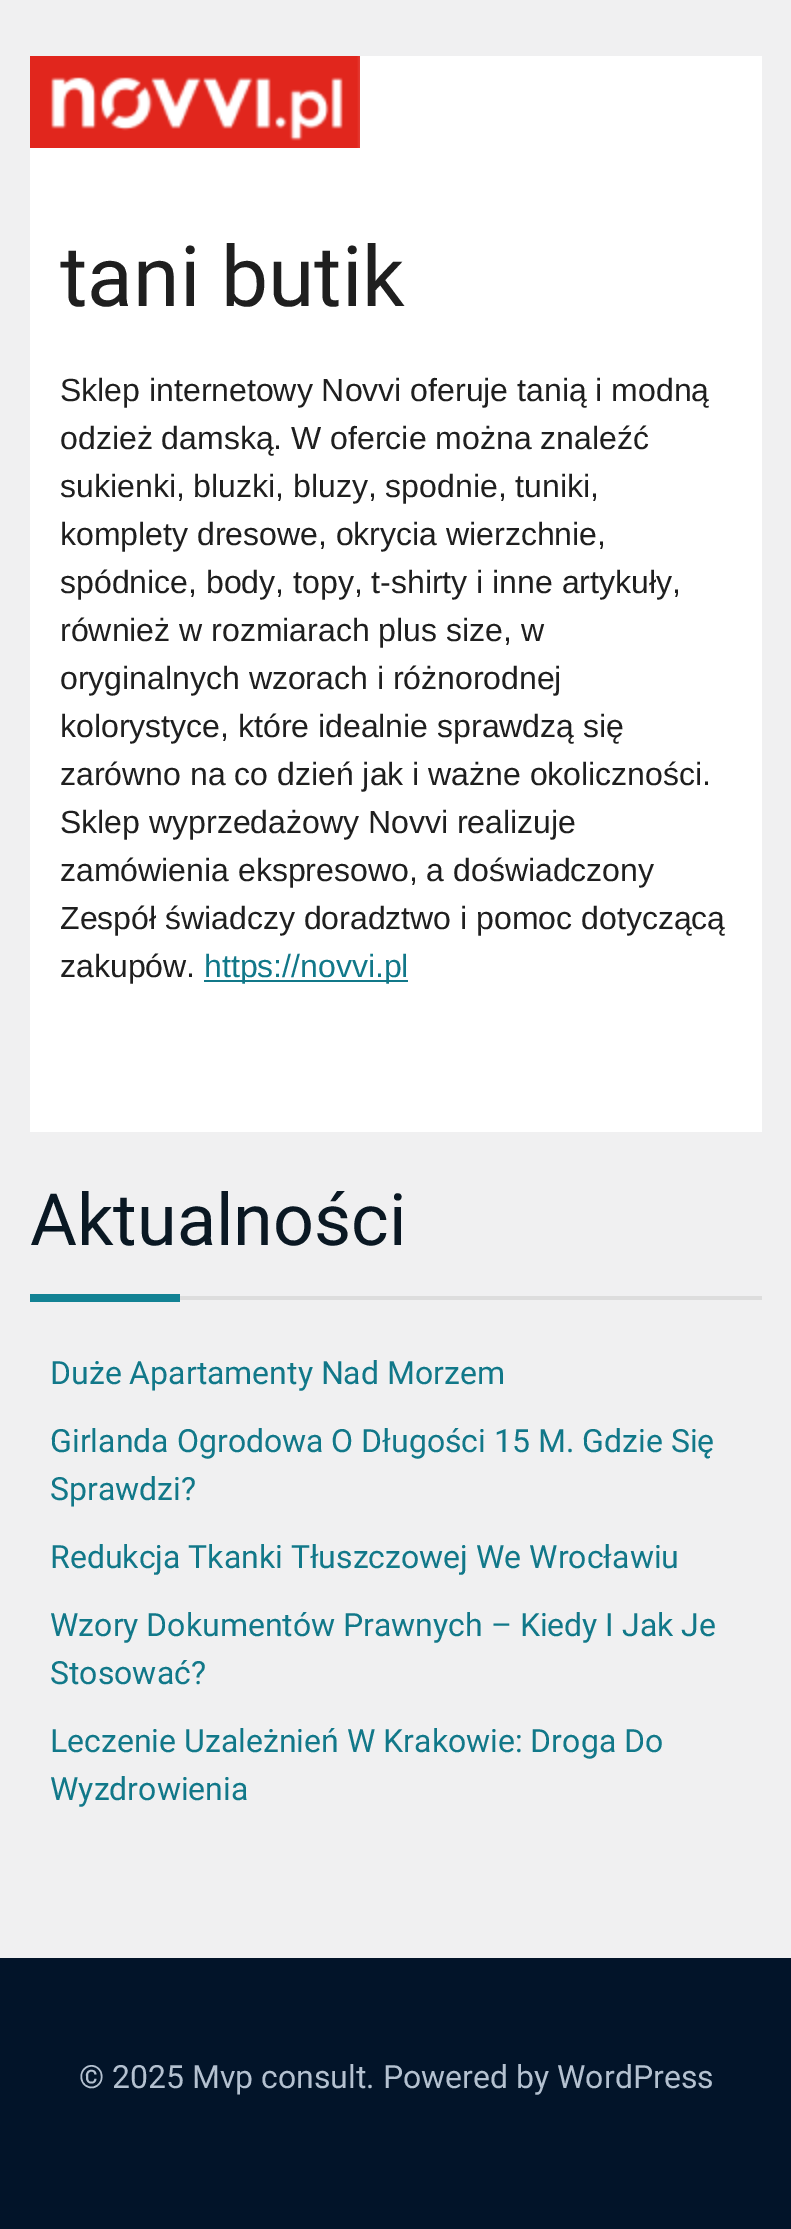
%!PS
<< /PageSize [791 2229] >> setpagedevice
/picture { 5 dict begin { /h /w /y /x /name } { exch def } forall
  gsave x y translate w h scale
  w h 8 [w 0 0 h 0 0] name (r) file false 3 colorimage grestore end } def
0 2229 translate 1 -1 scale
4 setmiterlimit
0.941 0.941 0.945 setrgbcolor
0 0 791 2229 rectfill
1 setgray
30 56 732 1076 rectfill
(img1.rgb) 30 56 330 92 picture
/Roboto-Regular [84 0 0 -84 0 0] selectfont
0.122 setgray
60 306 moveto (tani butik) show
/LiberationSans-Regular [32 0 0 -32 0 0] selectfont
60 401 moveto (Sklep internetowy Novvi oferuje tanią i modną) show
60 449 moveto (odzież damską. W ofercie można znaleźć) show
60 497 moveto (sukienki, bluzki, bluzy, spodnie, tuniki,) show
60 545 moveto (komplety dresowe, okrycia wierzchnie,) show
60 593 moveto (spódnice, body, topy, t-shirty i inne artykuły,) show
60 641 moveto (również w rozmiarach plus size, w) show
60 689 moveto (oryginalnych wzorach i różnorodnej) show
60 737 moveto (kolorystyce, które idealnie sprawdzą się) show
60 785 moveto (zarówno na co dzień jak i ważne okoliczności.) show
60 833 moveto (Sklep wyprzedażowy Novvi realizuje) show
60 881 moveto (zamówienia ekspresowo, a doświadczony) show
60 929 moveto (Zespół świadczy doradztwo i pomoc dotyczącą) show
60 977 moveto (zakupów.) show
0.067 0.471 0.537 setrgbcolor
204 980 204 2 rectfill
204 977 moveto (https://novvi.pl) show
0.867 setgray
180 1296 582 4 rectfill
/Roboto-Regular [72 0 0 -72 0 0] selectfont
0.039 0.094 0.137 setrgbcolor
30 1245 moveto (Aktualności) show
0.071 0.51 0.58 setrgbcolor
30 1294 150 8 rectfill
/Roboto-Regular [32 0 0 -32 0 0] selectfont
0.067 0.471 0.537 setrgbcolor
50 1384 moveto (Duże Apartamenty Nad Morzem) show
50 1452 moveto (Girlanda Ogrodowa O Długości 15 M. Gdzie Się) show
50 1500 moveto (Sprawdzi?) show
50 1568 moveto (Redukcja Tkanki Tłuszczowej We Wrocławiu) show
50 1636 moveto (Wzory Dokumentów Prawnych – Kiedy I Jak Je) show
50 1684 moveto (Stosować?) show
50 1752 moveto (Leczenie Uzależnień W Krakowie: Droga Do) show
50 1800 moveto (Wyzdrowienia) show
0.008 0.078 0.161 setrgbcolor
0 1958 791 271 rectfill
0.706 0.757 0.816 setrgbcolor
79 2088 moveto (© 2025 Mvp consult. Powered by WordPress) show
showpage
